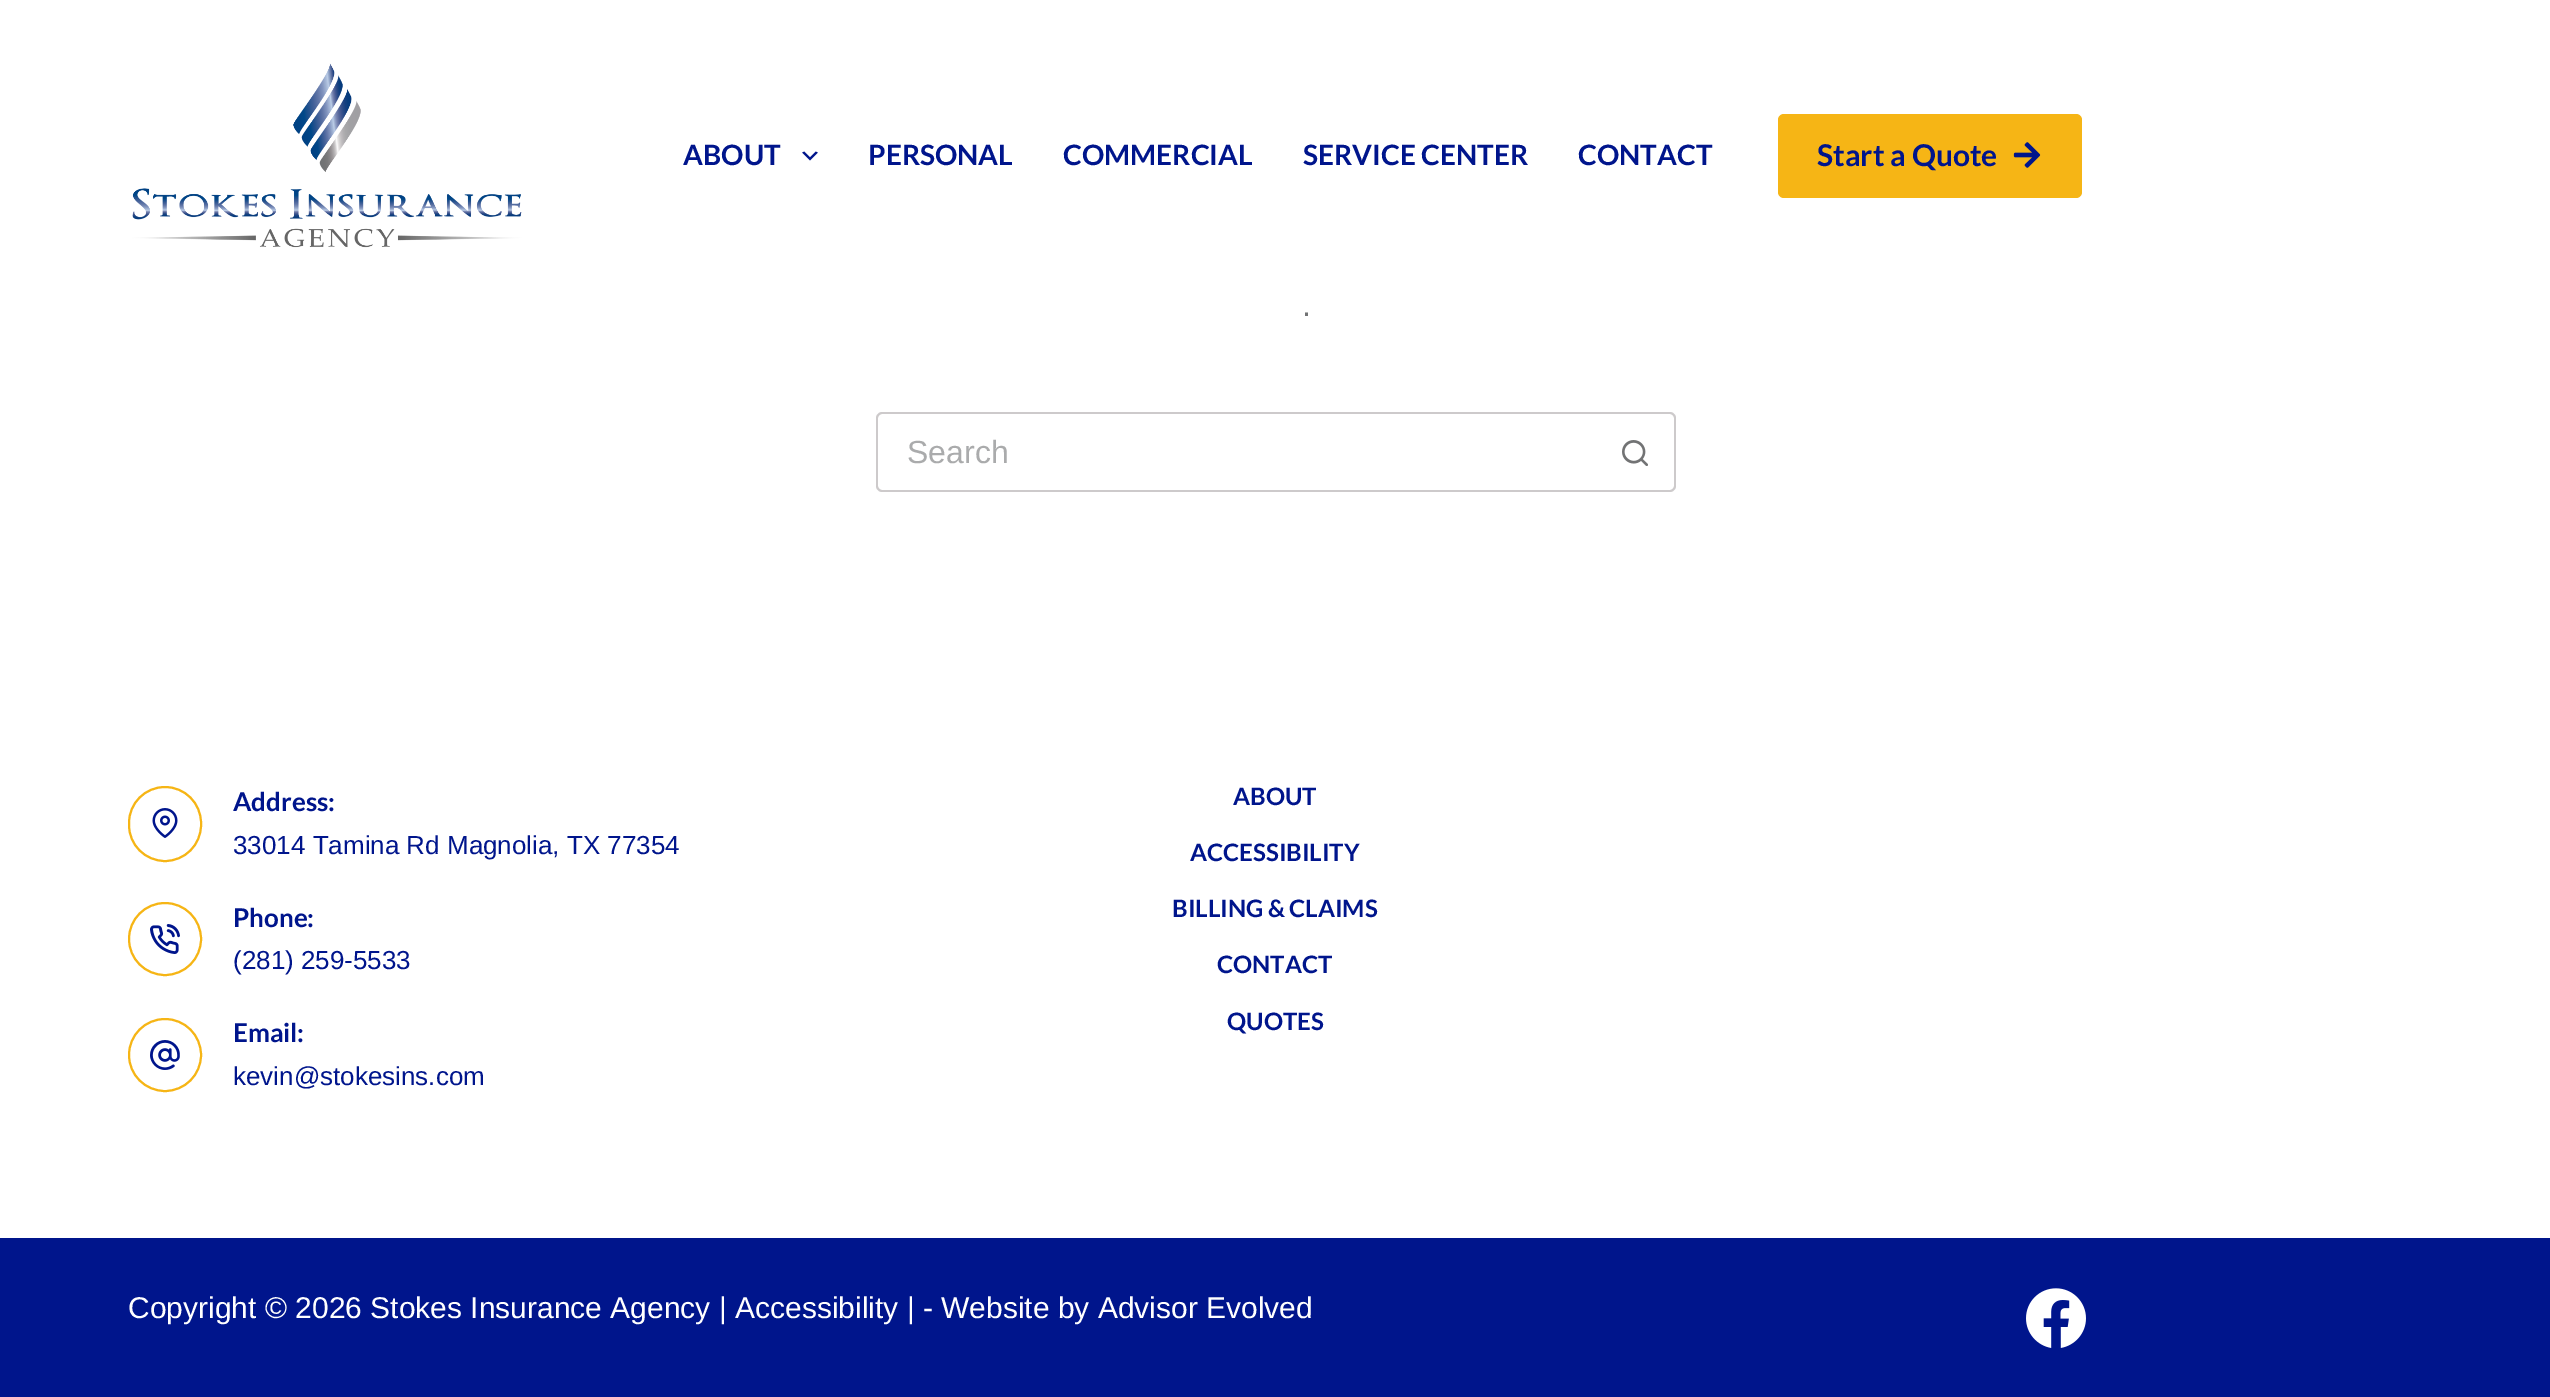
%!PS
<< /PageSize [2550 1397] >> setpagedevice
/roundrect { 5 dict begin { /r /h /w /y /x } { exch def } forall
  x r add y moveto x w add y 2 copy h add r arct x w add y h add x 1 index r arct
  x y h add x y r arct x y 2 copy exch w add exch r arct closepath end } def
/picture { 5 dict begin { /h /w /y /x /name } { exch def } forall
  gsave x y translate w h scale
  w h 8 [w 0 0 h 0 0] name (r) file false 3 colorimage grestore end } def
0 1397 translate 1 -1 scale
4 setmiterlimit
1 setgray
0 0 2550 1397 rectfill
(img1.rgb) 132 63 390 185 picture
/Lato-Bold [28 0 0 -28 0 0] selectfont
0 0.082 0.549 setrgbcolor
683 165 moveto (ABOUT) show
(img2.rgb) 802 151 16 10 picture
868 165 moveto (PERSONAL) show
1063 165 moveto (COMMERCIAL) show
1303 165 moveto (SERVICE CENTER) show
1578 165 moveto (CONTACT) show
0.965 0.71 0.082 setrgbcolor
1778 114 304 84 6 roundrect fill
/Lato-Bold [30 0 0 -30 0 0] selectfont
0 0.082 0.549 setrgbcolor
1817 166 moveto (Start a Quote) show
(img3.rgb) 2013 142 28 26 picture
/LiberationSans-Regular [32 0 0 -32 0 0] selectfont
0.447 0.451 0.455 setrgbcolor
1302 316 moveto (.) show
0.804 0.792 0.796 setrgbcolor
newpath 882 412 moveto 1596 412 lineto 1596 492 lineto 882 492 lineto 879 492 876 489 876 486 curveto 876 418 lineto 876 415 879 412 882 412 curveto closepath 882 414 moveto 1596 414 lineto 1596 490 lineto 882 490 lineto 880 490 878 488 878 486 curveto 878 418 lineto 878 416 880 414 882 414 curveto closepath eofill
0.667 0.671 0.675 setrgbcolor
907 463 moveto (Search) show
0.804 0.792 0.796 setrgbcolor
newpath 1596 412 moveto 1670 412 lineto 1673 412 1676 415 1676 418 curveto 1676 486 lineto 1676 489 1673 492 1670 492 curveto 1596 492 lineto closepath 1596 414 moveto 1670 414 lineto 1672 414 1674 416 1674 418 curveto 1674 486 lineto 1674 488 1672 490 1670 490 curveto 1596 490 lineto closepath eofill
(img4.rgb) 1622 440 26 26 picture
0.965 0.71 0.082 setrgbcolor
2 setlinewidth
129 787 72 74 36 roundrect stroke
(img5.rgb) 152 808 26 30 picture
/Lato-Bold [26 0 0 -26 0 0] selectfont
0 0.082 0.549 setrgbcolor
233 811 moveto (Address:) show
/LiberationSans-Regular [26 0 0 -26 0 0] selectfont
233 854 moveto (33014 Tamina Rd Magnolia, TX 77354) show
0.965 0.71 0.082 setrgbcolor
newpath 165 939 36 0 360 arc closepath stroke
(img6.rgb) 150 924 30 30 picture
/Lato-Bold [26 0 0 -26 0 0] selectfont
0 0.082 0.549 setrgbcolor
233 927 moveto (Phone:) show
/LiberationSans-Regular [26 0 0 -26 0 0] selectfont
233 969 moveto (\(281\) 259-5533) show
0.965 0.71 0.082 setrgbcolor
newpath 165 1055 36 0 360 arc closepath stroke
(img7.rgb) 150 1040 30 30 picture
/Lato-Bold [26 0 0 -26 0 0] selectfont
0 0.082 0.549 setrgbcolor
233 1042 moveto (Email:) show
/LiberationSans-Regular [26 0 0 -26 0 0] selectfont
233 1085 moveto (kevin@stokesins.com) show
/Lato-Bold [24 0 0 -24 0 0] selectfont
1233 805 moveto (ABOUT) show
1190 861 moveto (ACCESSIBILITY) show
1172 917 moveto (BILLING & CLAIMS) show
1217 973 moveto (CONTACT) show
1227 1030 moveto (QUOTES) show
0 1238 2550 159 rectfill
/LiberationSans-Regular [30 0 0 -30 0 0] selectfont
1 setgray
128 1318 moveto (Copyright © 2026 Stokes Insurance Agency | Accessibility | - Website by Advisor Evolved) show
(img8.rgb) 2026 1288 60 60 picture
showpage
